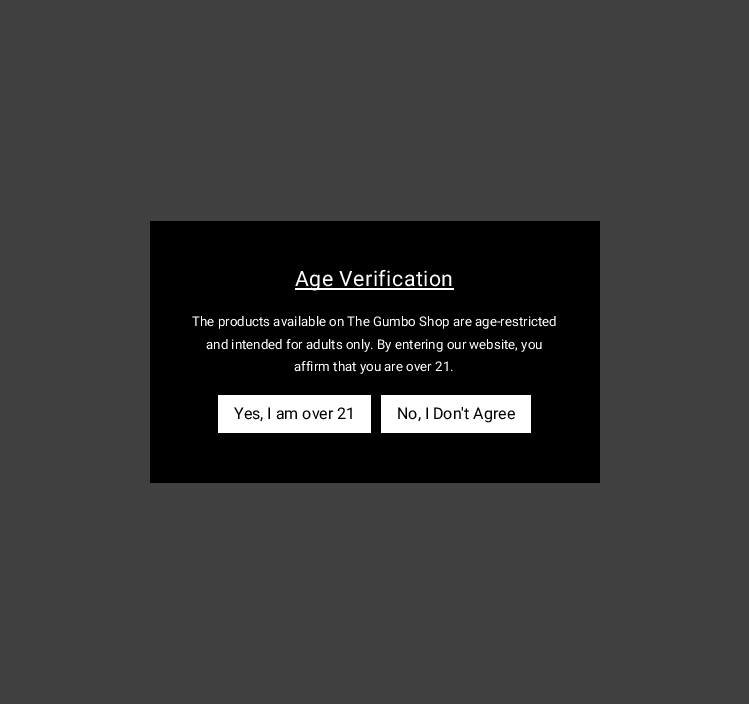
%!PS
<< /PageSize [749 704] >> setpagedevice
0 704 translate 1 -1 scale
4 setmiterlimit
0.251 setgray
0 0 749 704 rectfill
0 setgray
150 221 450 262 rectfill
1 setgray
295 288 159 2 rectfill
/Roboto-Regular [21.25 0 0 -21.25 0 0] selectfont
295 286 moveto 0.5 0 (Age Verification) ashow
/Roboto-Regular [13.3 0 0 -13.3 0 0] selectfont
192 326 moveto (The products available on The Gumbo Shop are age-restricted) show
206 349 moveto (and intended for adults only. By entering our website, you) show
294 371 moveto (affirm that you are over 21.) show
218 395 153 38 rectfill
/Roboto-Regular [16 0 0 -16 0 0] selectfont
0 setgray
234 419 moveto (Yes, I am over 21) show
1 setgray
381 395 150 38 rectfill
0 setgray
397 419 moveto (No, I Don't Agree) show
showpage
